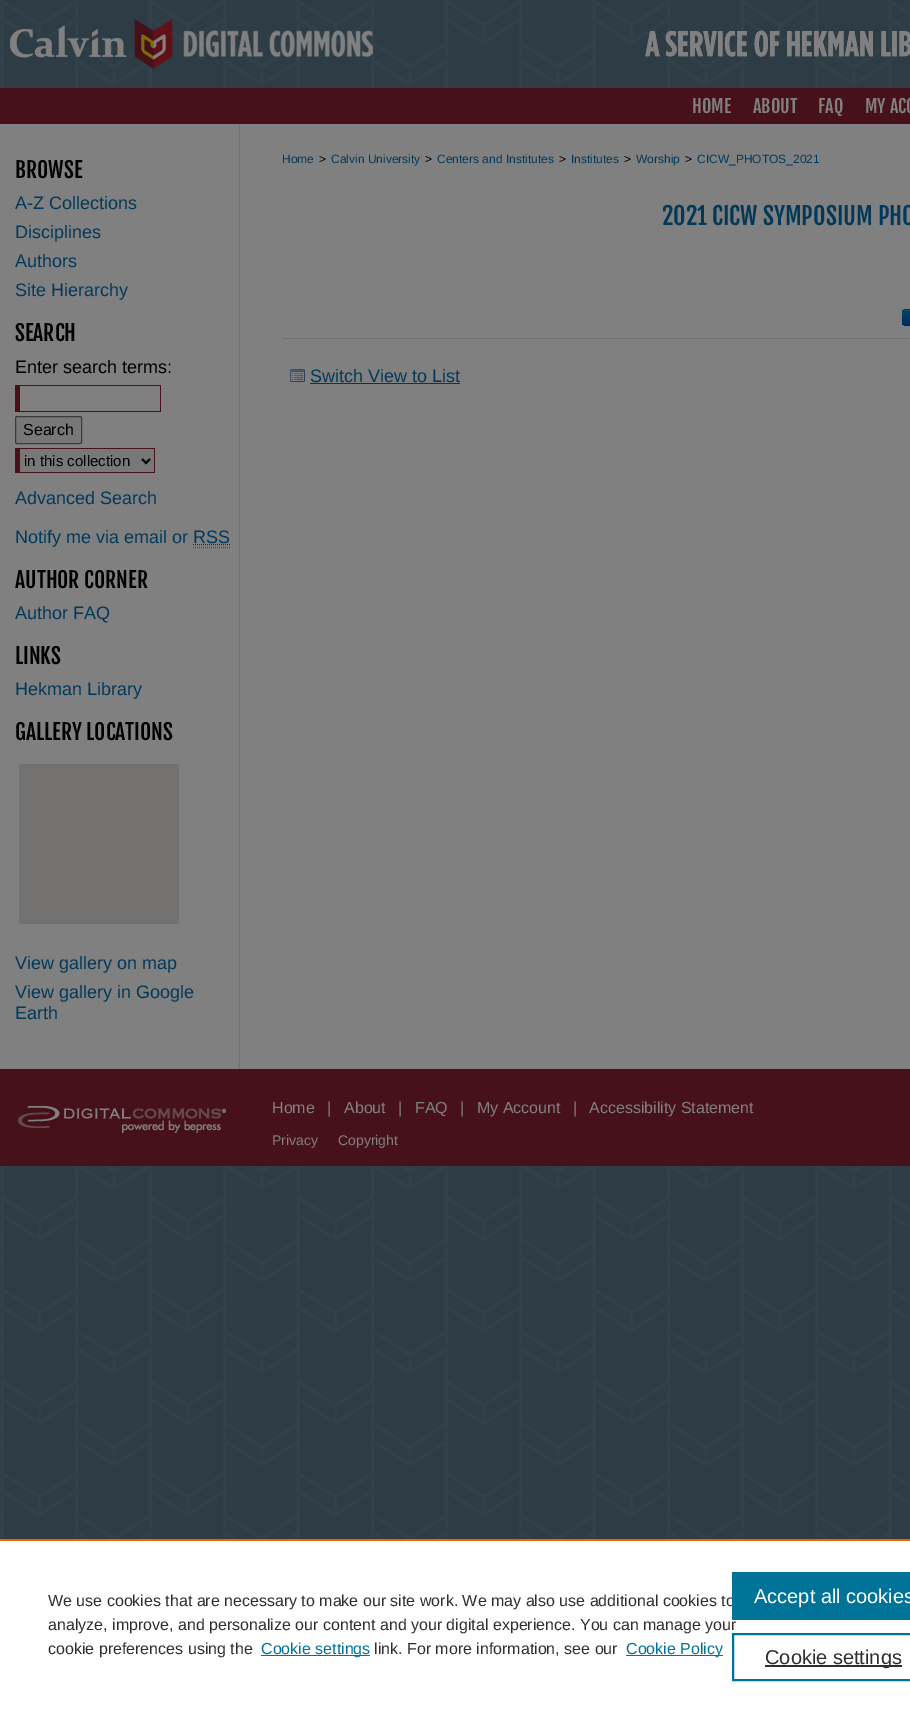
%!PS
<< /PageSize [910 1709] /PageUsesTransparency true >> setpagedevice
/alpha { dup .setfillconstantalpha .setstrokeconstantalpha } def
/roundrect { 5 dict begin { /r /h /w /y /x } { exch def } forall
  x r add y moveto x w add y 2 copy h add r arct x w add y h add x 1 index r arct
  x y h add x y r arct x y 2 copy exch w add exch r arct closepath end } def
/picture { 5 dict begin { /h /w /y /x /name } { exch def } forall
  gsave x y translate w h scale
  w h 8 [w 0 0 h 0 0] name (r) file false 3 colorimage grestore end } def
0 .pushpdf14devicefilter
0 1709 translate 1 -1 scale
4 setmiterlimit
1 setgray
0 0 910 1709 rectfill
(img1.rgb) 0 0 910 1539 picture
(img2.rgb) 10 19 900 50 picture
(img3.rgb) 10 25 117 33 picture
(img4.rgb) 645 30 265 27 picture
0.275 0.067 0.098 setrgbcolor
0 88 910 36 rectfill
/FjallaOne-Regular [18 0 0 -18 0 0] selectfont
0.502 setgray
692 113 moveto (HOME) show
753 113 moveto (ABOUT) show
818 113 moveto (FAQ) show
865 113 moveto (MY ACC) show
0 124 910 945 rectfill
0.447 setgray
239 124 1 945 rectfill
/FjallaOne-Regular [21.5 0 0 -21.5 0 0] selectfont
0 setgray
15 178 moveto (BROWSE) show
/LiberationSans-Regular [18 0 0 -18 0 0] selectfont
0.008 0.224 0.357 setrgbcolor
15 209 moveto (A-Z Collections) show
15 238 moveto (Disciplines) show
15 267 moveto (Authors) show
15 296 moveto (Site Hierarchy) show
/FjallaOne-Regular [21.5 0 0 -21.5 0 0] selectfont
0 setgray
15 341 moveto (SEARCH) show
/LiberationSans-Regular [18 0 0 -18 0 0] selectfont
15 373 moveto (Enter search terms:) show
0.275 0.067 0.098 setrgbcolor
15 385 146 1 rectfill
160 385 1 27 rectfill
15 411 146 1 rectfill
15 385 5 27 rectfill
0.471 setgray
15.5 416.5 66 27 1.5 roundrect gsave fill grestore
0.231 setgray
stroke
/LiberationSans-Regular [16 0 0 -16 0 0] selectfont
0 setgray
23 435 moveto (Search) show
0.471 setgray
20 449 134 23 rectfill
0.275 0.067 0.098 setrgbcolor
15 448 140 1 rectfill
154 448 1 25 rectfill
15 472 140 1 rectfill
15 448 5 25 rectfill
0 setgray
2 setlinewidth
newpath 142 459 moveto 146 463 lineto 150 459 lineto stroke
/LiberationSans-Regular [15 0 0 -15 0 0] selectfont
24 466 moveto (in this collection) show
/LiberationSans-Regular [18 0 0 -18 0 0] selectfont
0.008 0.224 0.357 setrgbcolor
15 504 moveto (Advanced Search) show
15 543 moveto (Notify me via email or RSS) show
1 setlinewidth
[1 1] 0 setdash
newpath 193 544.5 moveto 230 544.5 lineto stroke
0.302 setgray
newpath 193 547.5 moveto 230 547.5 lineto stroke
/FjallaOne-Regular [21.5 0 0 -21.5 0 0] selectfont
0 setgray
15 588 moveto (AUTHOR CORNER) show
/LiberationSans-Regular [18 0 0 -18 0 0] selectfont
0.008 0.224 0.357 setrgbcolor
15 619 moveto (Author FAQ) show
/FjallaOne-Regular [21.5 0 0 -21.5 0 0] selectfont
0 setgray
15 664 moveto (LINKS) show
/LiberationSans-Regular [18 0 0 -18 0 0] selectfont
0.008 0.224 0.357 setrgbcolor
15 695 moveto (Hekman Library) show
/FjallaOne-Regular [21.5 0 0 -21.5 0 0] selectfont
0 setgray
15 740 moveto (GALLERY LOCATIONS) show
0.451 0.447 0.439 setrgbcolor
19 764 160 160 rectfill
/LiberationSans-Regular [18 0 0 -18 0 0] selectfont
0.008 0.224 0.357 setrgbcolor
15 969 moveto (View gallery on map) show
15 998 moveto (View gallery in Google) show
15 1019 moveto (Earth) show
/LiberationSans-Regular [12 0 0 -12 0 0] selectfont
282 163 moveto (Home) show
0 setgray
319 163 moveto (>) show
0.008 0.224 0.357 setrgbcolor
331 163 moveto (Calvin University) show
0 setgray
425 163 moveto (>) show
0.008 0.224 0.357 setrgbcolor
437 163 moveto (Centers and Institutes) show
0 setgray
559 163 moveto (>) show
0.008 0.224 0.357 setrgbcolor
571 163 moveto (Institutes) show
0 setgray
624 163 moveto (>) show
0.008 0.224 0.357 setrgbcolor
636 163 moveto (Worship) show
0 setgray
685 163 moveto (>) show
0.008 0.224 0.357 setrgbcolor
697 163 moveto (CICW_PHOTOS_2021) show
/FjallaOne-Regular [24 0 0 -24 0 0] selectfont
662 225 moveto (2021 CICW SYMPOSIUM PHO) show
0.435 setgray
282 338 628 1 rectfill
0 0.227 0.4 setrgbcolor
902 309 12 17 4 roundrect fill
gsave
902 309 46 17 4 roundrect clip newpath
gsave newpath 902 310 moveto 910 310 lineto 910 325 lineto 902 325 lineto closepath clip newpath
<< /ShadingType 2 /ColorSpace /DeviceRGB /Coords [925 310 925 325] /Extend [true true] /Function << /FunctionType 2 /Domain [0 1] /C0 [0 0.267 0.4] /C1 [0 0.169 0.4] /N 1 >> >> shfill grestore
grestore
0.2 alpha
0.502 setgray
newpath 906 311 moveto 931 311 lineto 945 311 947 307 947 322 curveto 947 311 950 310 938 310 curveto 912 310 lineto 905 310 903 309 903 316 curveto 903 323 lineto 903 320 902 311 906 311 curveto closepath fill
0.25 alpha
0 setgray
[] 0 setdash
newpath 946.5 324.5 moveto 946 325 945 325.5 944 325.5 curveto 906 325.5 lineto 905 325.5 904 325 903.5 324.5 curveto stroke
0.1 alpha
newpath 903.5 324.5 moveto 902 322.5 902.5 319.5 902.5 317.5 curveto 902.5 308.5 903 309.5 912.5 309.5 curveto 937.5 309.5 lineto 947 309.5 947.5 308.5 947.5 317.5 curveto 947.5 319.5 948 322.5 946.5 324.5 curveto stroke
1 alpha
(img5.rgb) 290 369 15 13 picture
/LiberationSans-Regular [18 0 0 -18 0 0] selectfont
0.008 0.224 0.357 setrgbcolor
310 382 moveto (Switch View to List) show
310 383 150 1 rectfill
0.275 0.067 0.098 setrgbcolor
0 1069 910 97 rectfill
(img6.rgb) 18 1106 208 27 picture
/LiberationSans-Regular [16 0 0 -16 0 0] selectfont
0.502 setgray
272 1113 moveto (Home) show
327 1113 moveto (|) show
344 1113 moveto (About) show
398 1113 moveto (|) show
415 1113 moveto (FAQ) show
460 1113 moveto (|) show
477 1113 moveto (My Account) show
573 1113 moveto (|) show
589 1113 moveto (Accessibility Statement) show
/LiberationSans-Regular [14 0 0 -14 0 0] selectfont
272 1145 moveto (Privacy) show
338 1145 moveto (Copyright) show
0.922 0.396 0 setrgbcolor
0 1539 910 2 rectfill
/LiberationSans-Regular [16 0 0 -16 0 0] selectfont
0.18 setgray
48 1606 moveto (We use cookies that are necessary to make our site work. We may also use additional cookies to) show
48 1630 moveto (analyze, improve, and personalize our content and your digital experience. You can manage your) show
48 1654 moveto (cookie preferences using the) show
0 0.451 0.596 setrgbcolor
261 1655 109 1 rectfill
261 1654 moveto (Cookie settings) show
0.18 setgray
374 1654 moveto (link. For more information, see our) show
0 0.451 0.596 setrgbcolor
626 1655 97 1 rectfill
626 1654 moveto (Cookie Policy) show
732 1572 178 48 rectfill
/LiberationSans-Regular [20 0 0 -20 0 0] selectfont
1 setgray
754 1603 moveto (Accept all cookies) show
0 0.451 0.596 setrgbcolor
2 setlinewidth
733 1634 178 46 rectstroke
0.18 setgray
765 1665 137 2 rectfill
765 1664 moveto (Cookie settings) show
.poppdf14devicefilter showpage
